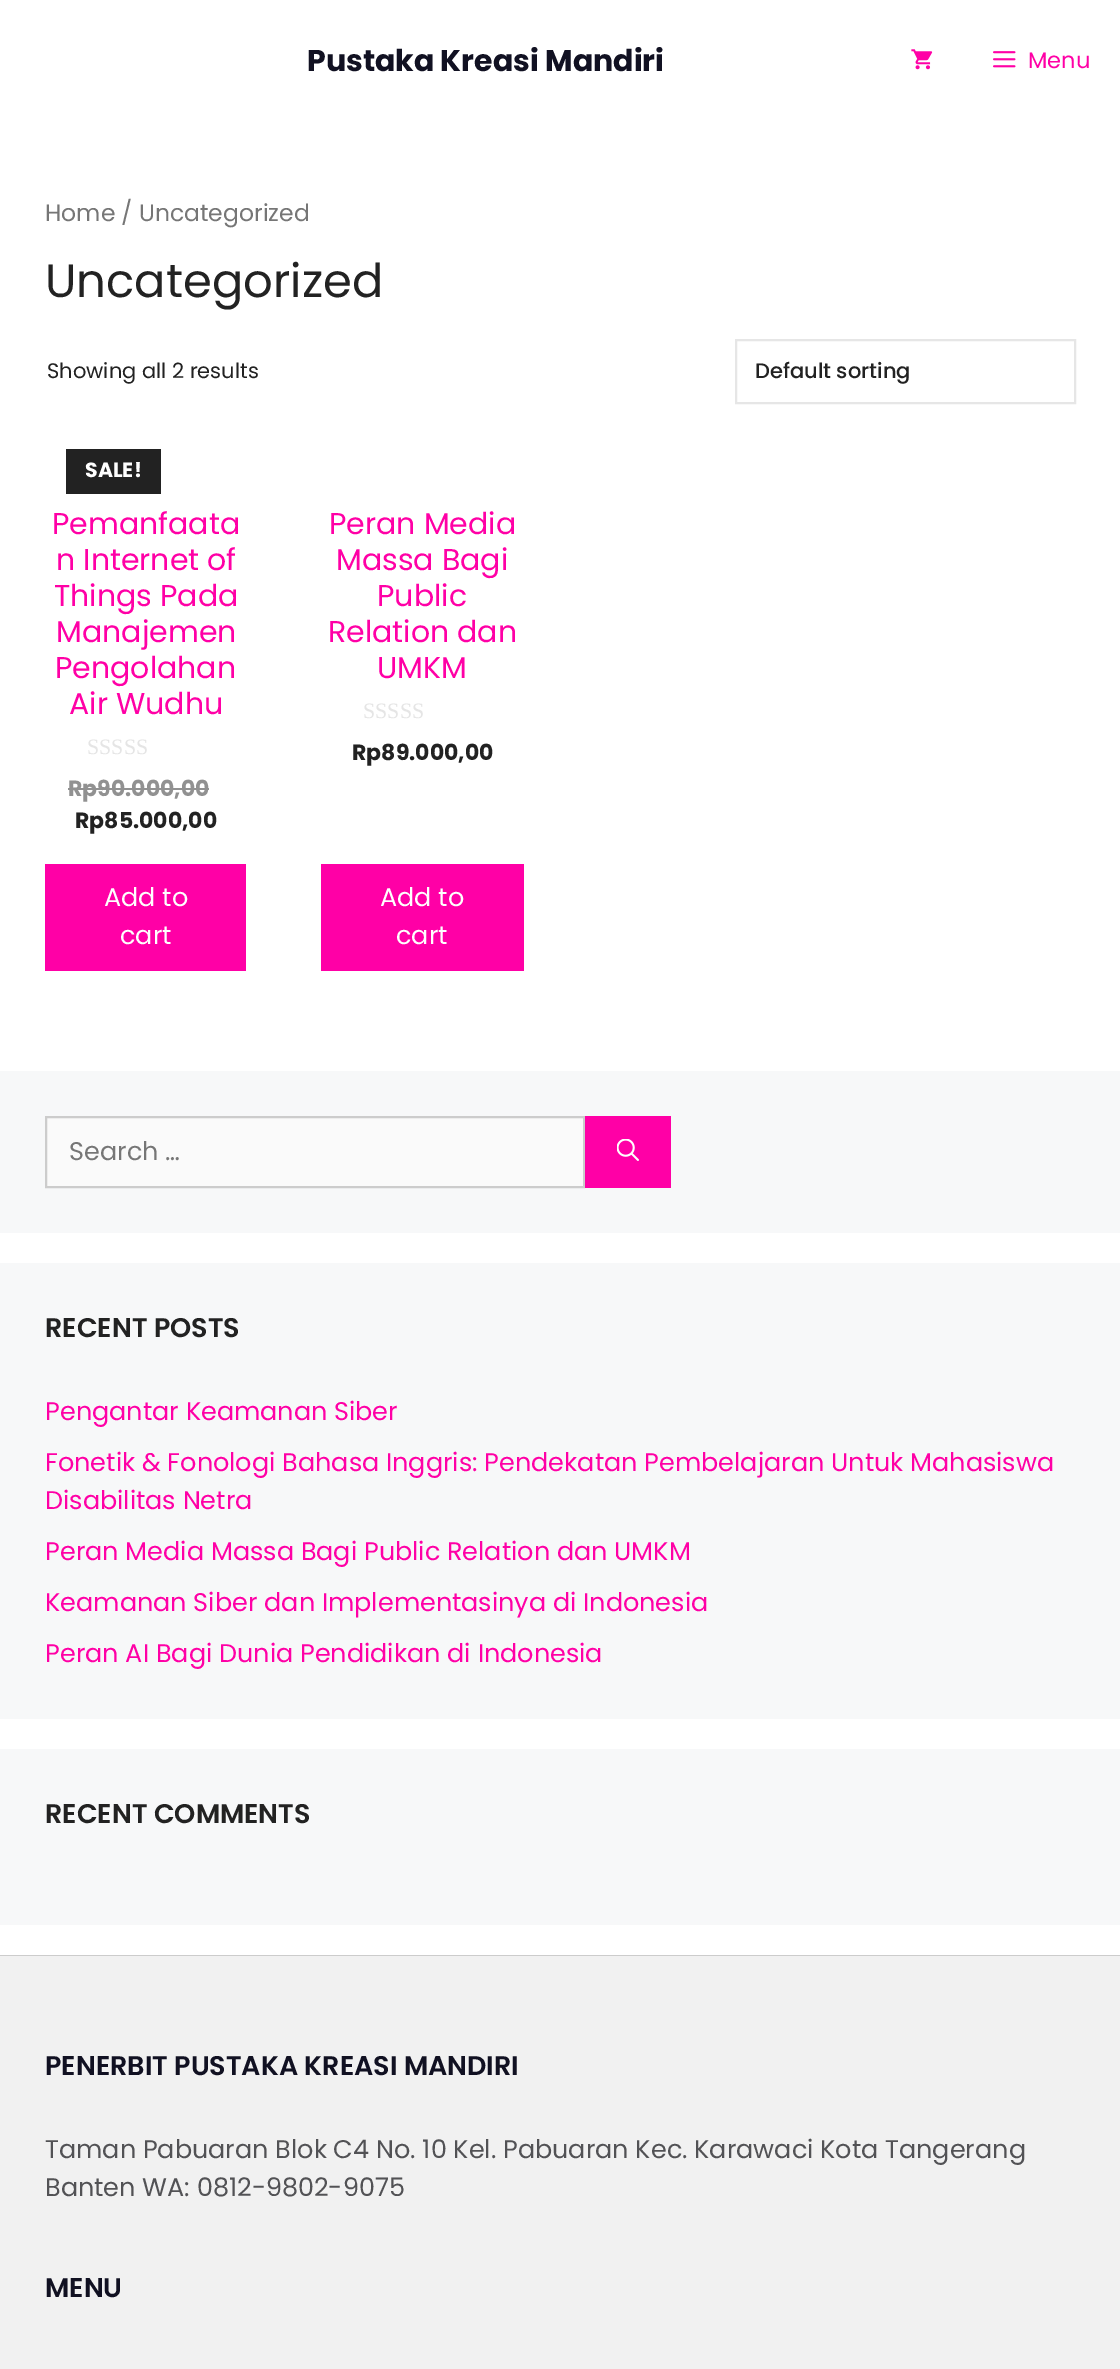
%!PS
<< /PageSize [1120 2369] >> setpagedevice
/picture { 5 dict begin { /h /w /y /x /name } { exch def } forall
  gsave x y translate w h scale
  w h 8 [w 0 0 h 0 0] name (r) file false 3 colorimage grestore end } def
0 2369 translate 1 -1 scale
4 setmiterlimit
1 setgray
0 0 1120 2369 rectfill
/Poppins-Bold [30 0 0 -30 0 0] selectfont
0.067 0.067 0.133 setrgbcolor
307 71 moveto (Pustaka Kreasi Mandiri) show
(img1.rgb) 911 49 22 21 picture
(img2.rgb) 993 51 23 17 picture
/Poppins-Regular [22.5 0 0 -22.5 0 0] selectfont
1 0 0.651 setrgbcolor
1028 68 moveto (Menu) show
/Poppins-Regular [23.5 0 0 -23.5 0 0] selectfont
0.463 setgray
45 221 moveto (Home / Uncategorized) show
/Poppins-Regular [46.5 0 0 -46.5 0 0] selectfont
0.133 setgray
45 297 moveto (Uncategorized) show
/Poppins-Regular [21 0 0 -21 0 0] selectfont
47 378 moveto (Showing all 2 results) show
0.902 setgray
2 setlinewidth
736 340 339 63 rectstroke
/Poppins-Medium [21 0 0 -21 0 0] selectfont
0.133 setgray
755 378 moveto (Default sorting) show
66 449 95 45 rectfill
/Poppins-Bold [20.5 0 0 -20.5 0 0] selectfont
1 setgray
85 477 moveto (SALE!) show
/Poppins-Regular [30 0 0 -30 0 0] selectfont
1 0 0.651 setrgbcolor
52 534 moveto (Pemanfaata) show
56 570 moveto (n Internet of) show
54 606 moveto (Things Pada) show
56 642 moveto (Manajemen) show
55 678 moveto (Pengolahan) show
69 714 moveto (Air Wudhu) show
/LiberationSerif-Regular [22 0 0 -22 0 0] selectfont
0.898 setgray
87 754 moveto (SSSSS) show
/Poppins-Bold [22 0 0 -22 0 0] selectfont
0.569 setgray
68 796 moveto (Rp90.000,00) show
68 788 141 2 rectfill
0.133 setgray
75 828 moveto (Rp85.000,00) show
1 0 0.651 setrgbcolor
45 864 201 107 rectfill
/Poppins-Regular [25.5 0 0 -25.5 0 0] selectfont
1 setgray
104 906 moveto (Add to) show
120 944 moveto (cart) show
/Poppins-Regular [30 0 0 -30 0 0] selectfont
1 0 0.651 setrgbcolor
329 534 moveto (Peran Media) show
336 570 moveto (Massa Bagi) show
377 606 moveto (Public) show
328 642 moveto (Relation dan) show
377 678 moveto (UMKM) show
/LiberationSerif-Regular [22 0 0 -22 0 0] selectfont
0.898 setgray
363 718 moveto (SSSSS) show
/Poppins-Bold [22 0 0 -22 0 0] selectfont
0.133 setgray
352 760 moveto (Rp89.000,00) show
1 0 0.651 setrgbcolor
321 864 203 107 rectfill
/Poppins-Regular [25.5 0 0 -25.5 0 0] selectfont
1 setgray
380 906 moveto (Add to) show
396 944 moveto (cart) show
0.969 0.973 0.976 setrgbcolor
0 1071 1120 162 rectfill
0.98 setgray
newpath 46 1117 moveto 584 1117 lineto 584 1187 lineto 46 1187 lineto closepath gsave fill grestore
0.8 setgray
stroke
0.463 setgray
69 1160 moveto (Search …) show
1 0 0.651 setrgbcolor
585 1116 86 72 rectfill
(img3.rgb) 617 1139 22 22 picture
0.969 0.973 0.976 setrgbcolor
0 1263 1120 456 rectfill
/Poppins-SemiBold [27 0 0 -27 0 0] selectfont
0.133 setgray
45 1337 moveto (RECENT POSTS) show
/Poppins-Regular [25.5 0 0 -25.5 0 0] selectfont
1 0 0.651 setrgbcolor
45 1420 moveto (Pengantar Keamanan Siber) show
45 1471 moveto (Fonetik & Fonologi Bahasa Inggris: Pendekatan Pembelajaran Untuk Mahasiswa) show
45 1509 moveto (Disabilitas Netra) show
45 1560 moveto (Peran Media Massa Bagi Public Relation dan UMKM) show
45 1611 moveto (Keamanan Siber dan Implementasinya di Indonesia) show
45 1662 moveto (Peran AI Bagi Dunia Pendidikan di Indonesia) show
0.969 0.973 0.976 setrgbcolor
0 1749 1120 176 rectfill
/Poppins-SemiBold [27 0 0 -27 0 0] selectfont
0.133 setgray
45 1823 moveto (RECENT COMMENTS) show
0.8 setgray
0 1955 1120 1 rectfill
0.945 setgray
0 1956 1120 413 rectfill
0.067 0.067 0.133 setrgbcolor
45 2075 moveto (PENERBIT PUSTAKA KREASI MANDIRI) show
/Poppins-Regular [25.5 0 0 -25.5 0 0] selectfont
0.322 0.322 0.333 setrgbcolor
45 2158 moveto (Taman Pabuaran Blok C4 No. 10 Kel. Pabuaran Kec. Karawaci Kota Tangerang) show
45 2196 moveto (Banten WA: 0812-9802-9075) show
/Poppins-SemiBold [27 0 0 -27 0 0] selectfont
0.067 0.067 0.133 setrgbcolor
45 2297 moveto (MENU) show
showpage
